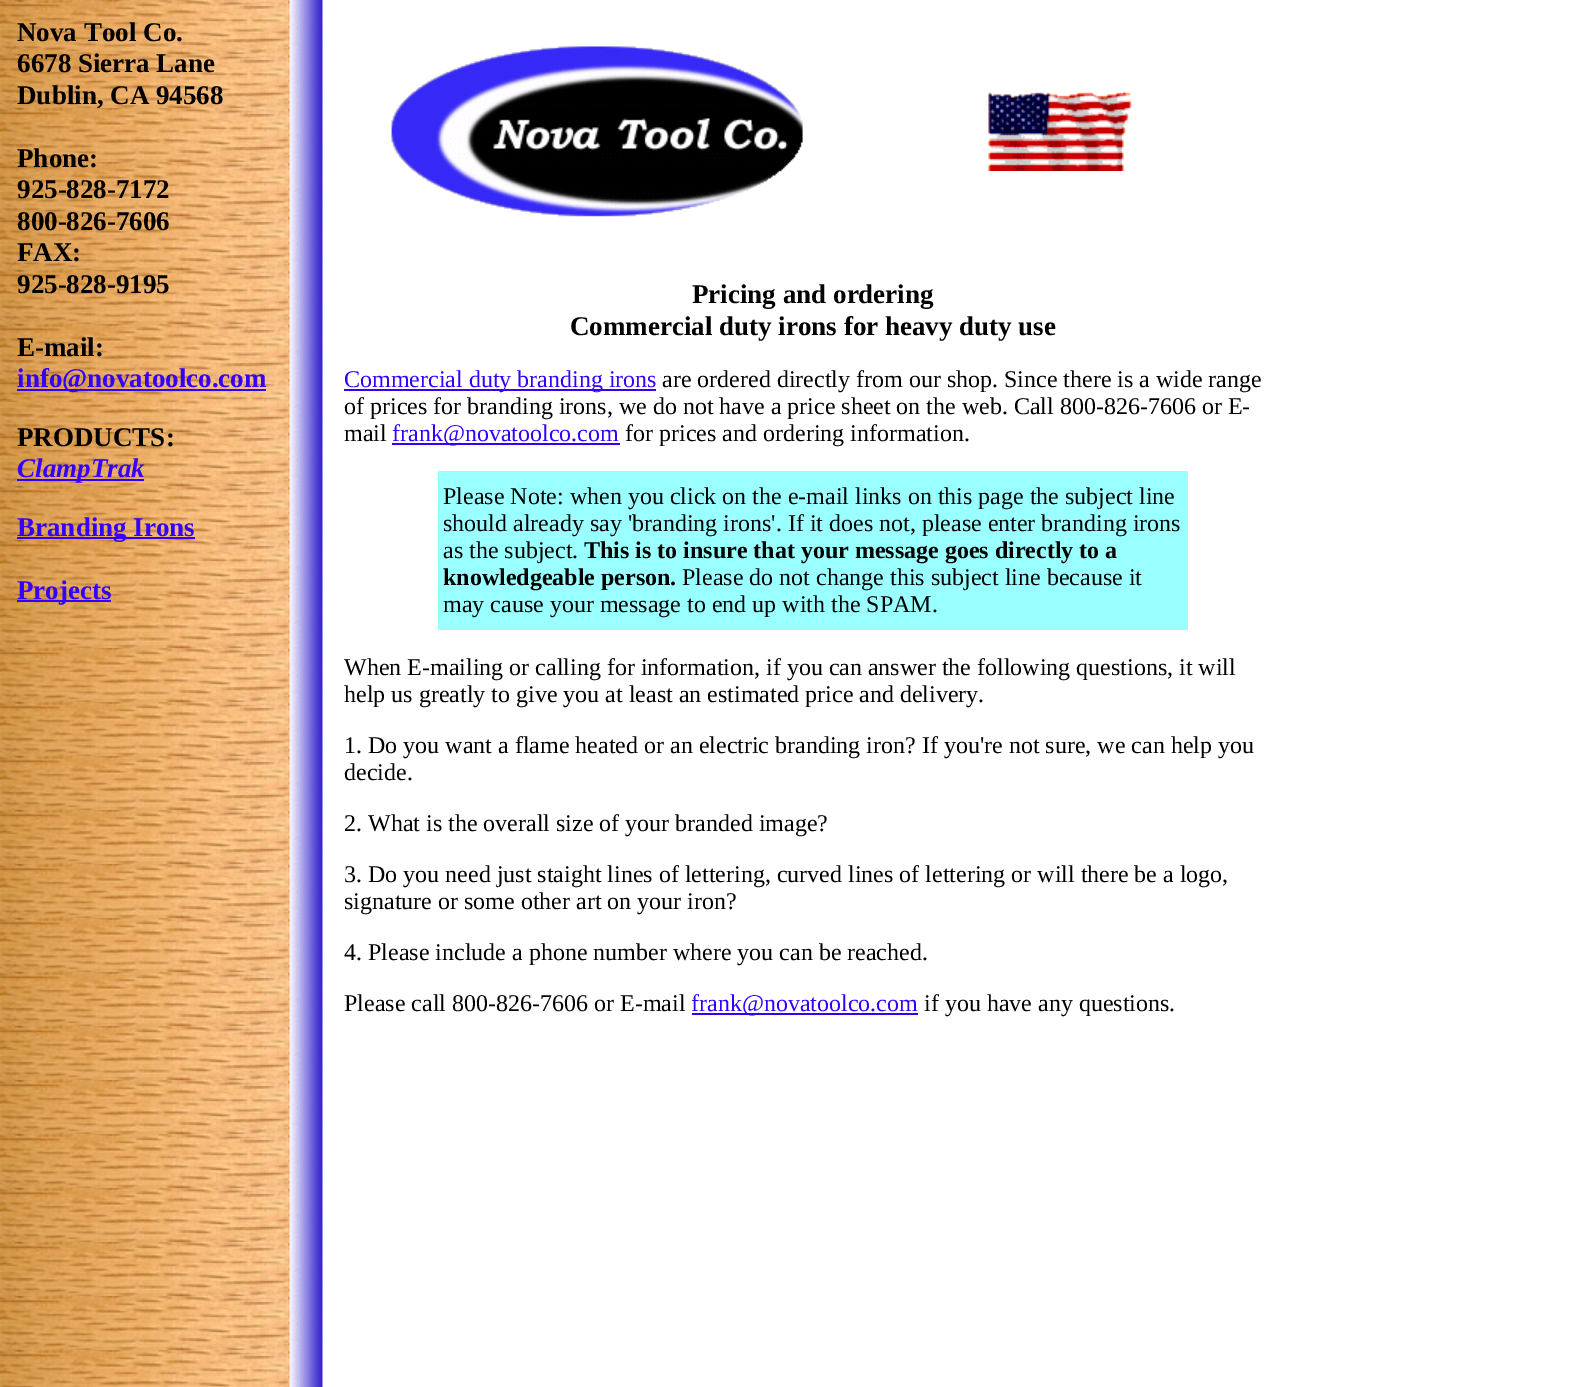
%!PS
<< /PageSize [1570 1387] >> setpagedevice
/picture { 5 dict begin { /h /w /y /x /name } { exch def } forall
  gsave x y translate w h scale
  w h 8 [w 0 0 h 0 0] name (r) file false 3 colorimage grestore end } def
0 1387 translate 1 -1 scale
4 setmiterlimit
1 setgray
0 0 1570 1387 rectfill
(img1.rgb) 0 0 324 1387 picture
/LiberationSerif-Bold [27 0 0 -27 0 0] selectfont
0 setgray
17 41 moveto (Nova Tool Co.) show
17 72 moveto (6678 Sierra Lane) show
17 104 moveto (Dublin, CA 94568) show
17 167 moveto (Phone:) show
17 198 moveto (925-828-7172) show
17 230 moveto (800-826-7606) show
17 261 moveto (FAX:) show
17 293 moveto (925-828-9195) show
17 356 moveto (E-mail:) show
0.2 0 1 setrgbcolor
17 389 249 2 rectfill
17 387 moveto (info@novatoolco.com) show
0 setgray
17 446 moveto (PRODUCTS:) show
0.2 0 1 setrgbcolor
17 479 127 2 rectfill
/LiberationSerif-BoldItalic [27 0 0 -27 0 0] selectfont
17 477 moveto (ClampTrak) show
17 537 178 2 rectfill
/LiberationSerif-Bold [27 0 0 -27 0 0] selectfont
17 536 moveto (Branding Irons) show
17 600 94 2 rectfill
17 599 moveto (Projects) show
(img2.rgb) 391 46 412 171 picture
(img3.rgb) 988 91 144 80 picture
0 setgray
692 303 moveto (Pricing and ordering) show
570 335 moveto (Commercial duty irons for heavy duty use) show
0.2 0 1 setrgbcolor
344 389 312 2 rectfill
/LiberationSerif-Regular [24 0 0 -24 0 0] selectfont
344 387 moveto (Commercial duty branding irons) show
0 setgray
662 387 moveto (are ordered directly from our shop. Since there is a wide range) show
344 414 moveto (of prices for branding irons, we do not have a price sheet on the web. Call 800-826-7606 or E-) show
344 441 moveto (mail) show
0.2 0 1 setrgbcolor
392 443 228 2 rectfill
392 441 moveto (frank@novatoolco.com) show
0 setgray
625 441 moveto (for prices and ordering information.) show
0.6 1 1 setrgbcolor
438 471 750 159 rectfill
0 setgray
443 504 moveto (Please Note: when you click on the e-mail links on this page the subject line) show
443 531 moveto (should already say 'branding irons'. If it does not, please enter branding irons) show
443 558 moveto (as the subject.) show
/LiberationSerif-Bold [24 0 0 -24 0 0] selectfont
584 558 moveto (This is to insure that your message goes directly to a) show
443 585 moveto (knowledgeable person.) show
/LiberationSerif-Regular [24 0 0 -24 0 0] selectfont
682 585 moveto (Please do not change this subject line because it) show
443 612 moveto (may cause your message to end up with the SPAM.) show
344 675 moveto (When E-mailing or calling for information, if you can answer the following questions, it will) show
344 702 moveto (help us greatly to give you at least an estimated price and delivery.) show
344 753 moveto (1. Do you want a flame heated or an electric branding iron? If you're not sure, we can help you) show
344 780 moveto (decide.) show
344 831 moveto (2. What is the overall size of your branded image?) show
344 882 moveto (3. Do you need just staight lines of lettering, curved lines of lettering or will there be a logo,) show
344 909 moveto (signature or some other art on your iron?) show
344 960 moveto (4. Please include a phone number where you can be reached.) show
344 1011 moveto (Please call 800-826-7606 or E-mail) show
0.2 0 1 setrgbcolor
692 1013 226 2 rectfill
691 1011 moveto (frank@novatoolco.com) show
0 setgray
924 1011 moveto (if you have any questions.) show
showpage
